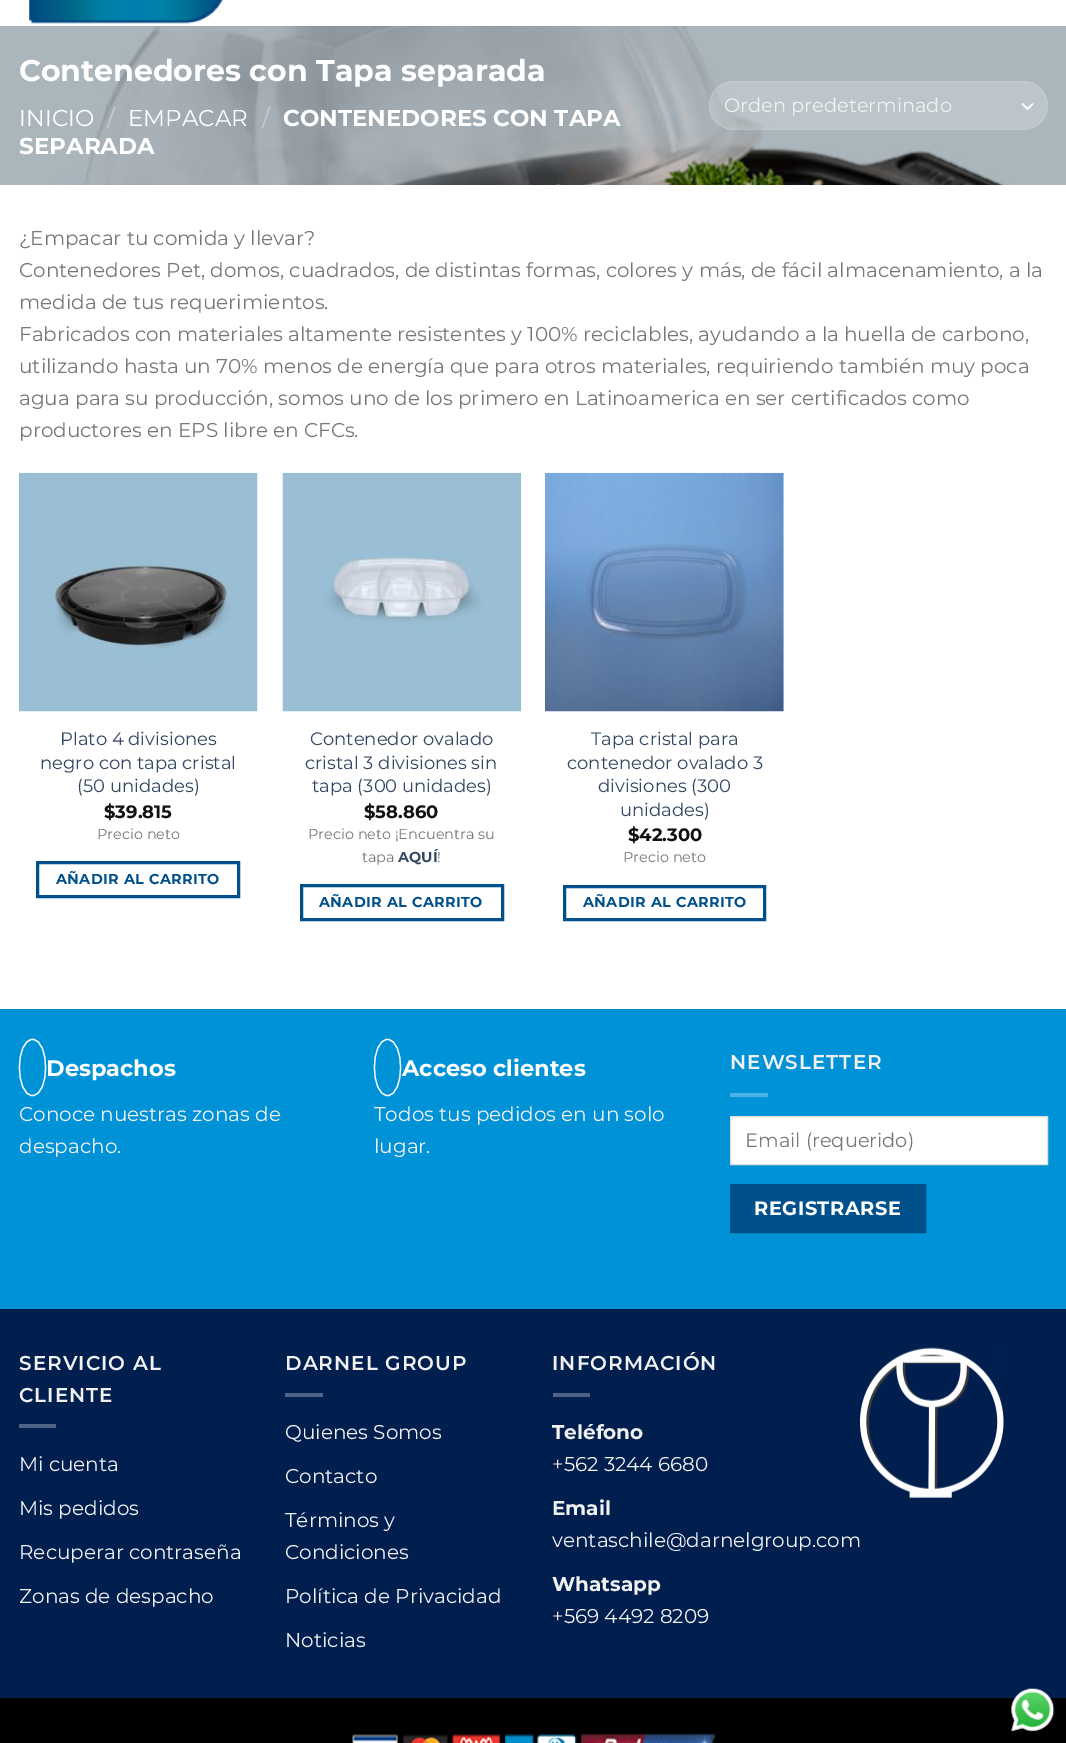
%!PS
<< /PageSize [1066 1743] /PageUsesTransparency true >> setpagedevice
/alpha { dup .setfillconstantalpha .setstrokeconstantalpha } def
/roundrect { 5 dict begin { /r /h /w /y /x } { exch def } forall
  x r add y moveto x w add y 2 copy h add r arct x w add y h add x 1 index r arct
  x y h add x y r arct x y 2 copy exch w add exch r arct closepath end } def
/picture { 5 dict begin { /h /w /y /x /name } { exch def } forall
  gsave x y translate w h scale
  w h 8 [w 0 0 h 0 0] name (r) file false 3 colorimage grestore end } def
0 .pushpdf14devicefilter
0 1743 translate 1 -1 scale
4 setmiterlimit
1 setgray
0 0 1066 1743 rectfill
(img1.rgb) 29 0 194 24 picture
(img2.rgb) 0 26 1066 159 picture
0.1 alpha
0.467 setgray
19 26 1029 1 rectfill
/Montserrat-Bold [30 0 0 -30 0 0] selectfont
1 alpha
1 setgray
19 81 moveto (Contenedores con Tapa separada) show
/Montserrat-Regular [23 0 0 -23 0 0] selectfont
19 126 moveto (INICIO) show
0.78 0.804 0.82 setrgbcolor
107 126 moveto (/) show
1 setgray
128 126 moveto (EMPACAR) show
0.78 0.804 0.82 setrgbcolor
262 126 moveto (/) show
/Montserrat-Bold [23 0 0 -23 0 0] selectfont
1 setgray
283 126 moveto (CONTENEDORES CON TAPA) show
19 154 moveto (SEPARADA) show
0.2 alpha
709 81 339 49 24.5 roundrect fill
1 alpha
1.7 setlinewidth
1 setlinecap
1 setlinejoin
newpath 1022.5 104 moveto 1027.5 109 lineto 1032.5 104 lineto stroke
0.09 alpha
1 setlinewidth
0 setlinecap
0 setlinejoin
709.5 81.5 338 48 24 roundrect stroke
/Montserrat-Regular [19.4 0 0 -19.4 0 0] selectfont
1 alpha
0.945 setgray
724 112 moveto (Orden predeterminado) show
/Montserrat-Regular [20 0 0 -20 0 0] selectfont
0.467 setgray
19 245 moveto (¿Empacar tu comida y llevar?) show
19 277 moveto (Contenedores Pet, domos, cuadrados, de distintas formas, colores y más, de fácil almacenamiento, a la) show
19 309 moveto (medida de tus requerimientos.) show
19 341 moveto (Fabricados con materiales altamente resistentes y 100% reciclables, ayudando a la huella de carbono,) show
19 373 moveto (utilizando hasta un 70% menos de energía que para otros materiales, requiriendo también muy poca) show
19 405 moveto (agua para su producción, somos uno de los primero en Latinoamerica en ser certificados como) show
19 437 moveto (productores en EPS libre en CFCs.) show
(img3.rgb) 18 472 240 240 picture
/Montserrat-Regular [18 0 0 -18 0 0] selectfont
0.2 0.282 0.384 setrgbcolor
60 745 moveto (Plato 4 divisiones) show
40 769 moveto (negro con tapa cristal) show
77 792 moveto (\(50 unidades\)) show
/Montserrat-Bold [18 0 0 -18 0 0] selectfont
0.067 setgray
104 818 moveto ($39.815) show
/Montserrat-Regular [14.4 0 0 -14.4 0 0] selectfont
0.467 setgray
97 839 moveto (Precio neto) show
0 0.318 0.545 setrgbcolor
3 setlinewidth
37.5 862.5 201 34 rectstroke
/Montserrat-Bold [14.4 0 0 -14.4 0 0] selectfont
56 884 moveto 0.4 0 (AÑADIR AL CARRITO) ashow
(img4.rgb) 282 472 240 240 picture
/Montserrat-Regular [18 0 0 -18 0 0] selectfont
0.2 0.282 0.384 setrgbcolor
310 745 moveto (Contenedor ovalado) show
305 769 moveto (cristal 3 divisiones sin) show
312 792 moveto (tapa \(300 unidades\)) show
/Montserrat-Bold [18 0 0 -18 0 0] selectfont
0.067 setgray
364 818 moveto ($58.860) show
/Montserrat-Regular [14.4 0 0 -14.4 0 0] selectfont
0.467 setgray
308 839 moveto (Precio neto ¡Encuentra su) show
362 862 moveto (tapa) show
/Montserrat-Bold [14.4 0 0 -14.4 0 0] selectfont
0.2 0.282 0.384 setrgbcolor
398 862 moveto (AQUÍ) show
/Montserrat-Regular [14.4 0 0 -14.4 0 0] selectfont
0.467 setgray
437 862 moveto (!) show
0 0.318 0.545 setrgbcolor
301.5 885.5 201 34 rectstroke
/Montserrat-Bold [14.4 0 0 -14.4 0 0] selectfont
319 907 moveto 0.4 0 (AÑADIR AL CARRITO) ashow
(img5.rgb) 545 472 239 240 picture
/Montserrat-Regular [18 0 0 -18 0 0] selectfont
0.2 0.282 0.384 setrgbcolor
591 745 moveto (Tapa cristal para) show
567 769 moveto (contenedor ovalado 3) show
598 792 moveto (divisiones \(300) show
620 816 moveto (unidades\)) show
/Montserrat-Bold [18 0 0 -18 0 0] selectfont
0.067 setgray
628 841 moveto ($42.300) show
/Montserrat-Regular [14.4 0 0 -14.4 0 0] selectfont
0.467 setgray
623 862 moveto (Precio neto) show
0 0.318 0.545 setrgbcolor
564.5 886.5 200 33 rectstroke
/Montserrat-Bold [14.4 0 0 -14.4 0 0] selectfont
583 907 moveto 0.4 0 (AÑADIR AL CARRITO) ashow
0 0.573 0.839 setrgbcolor
0 1010 1066 299 rectfill
0 0.545 0.796 setrgbcolor
0 1009 1066 1 rectfill
1 setgray
1.2 setlinewidth
newpath 32.5 1039.5 moveto 50 1039.5 50 1095.5 32.5 1095.5 curveto 15 1095.5 15 1039.5 32.5 1039.5 curveto closepath stroke
/Montserrat-Bold [22.5 0 0 -22.5 0 0] selectfont
46 1076 moveto (Despachos) show
/Montserrat-Regular [20 0 0 -20 0 0] selectfont
0.945 setgray
19 1121 moveto (Conoce nuestras zonas de) show
19 1153 moveto (despacho.) show
1 setgray
newpath 387.5 1039.5 moveto 405 1039.5 405 1095.5 387.5 1095.5 curveto 370 1095.5 370 1039.5 387.5 1039.5 curveto closepath stroke
/Montserrat-Bold [22.5 0 0 -22.5 0 0] selectfont
402 1076 moveto (Acceso clientes) show
/Montserrat-Regular [20 0 0 -20 0 0] selectfont
0.945 setgray
374 1121 moveto (Todos tus pedidos en un solo) show
374 1153 moveto (lugar.) show
/Montserrat-SemiBold [20 0 0 -20 0 0] selectfont
730 1069 moveto 1 0 (NEWSLETTER) ashow
0.302 0.702 0.886 setrgbcolor
730 1093 38 4 rectfill
1 setgray
newpath 730.5 1116.5 moveto 1047.5 1116.5 lineto 1047.5 1164.5 lineto 730.5 1164.5 lineto closepath gsave fill grestore
0.867 setgray
1 setlinewidth
stroke
/Montserrat-Regular [19.4 0 0 -19.4 0 0] selectfont
0.467 setgray
745 1147 moveto (Email \(requerido\)) show
0 0.318 0.545 setrgbcolor
newpath 730.5 1184.5 moveto 925.5 1184.5 lineto 925.5 1232.5 lineto 730.5 1232.5 lineto closepath gsave fill grestore
0 0.302 0.518 setrgbcolor
stroke
/Montserrat-Bold [19.4 0 0 -19.4 0 0] selectfont
1 setgray
754 1215 moveto 0.5 0 (REGISTRARSE) ashow
0 0.122 0.31 setrgbcolor
0 1310 1066 388 rectfill
0 0.114 0.294 setrgbcolor
0 1309 1066 1 rectfill
/Montserrat-SemiBold [20 0 0 -20 0 0] selectfont
0.945 setgray
19 1370 moveto 1 0 (SERVICIO AL) ashow
19 1402 moveto 1 0 (CLIENTE) ashow
0.302 0.384 0.518 setrgbcolor
19 1424 37 4 rectfill
/Montserrat-Regular [20 0 0 -20 0 0] selectfont
0.945 setgray
19 1471 moveto (Mi cuenta) show
19 1515 moveto (Mis pedidos) show
19 1559 moveto (Recuperar contraseña) show
19 1603 moveto (Zonas de despacho) show
/Montserrat-SemiBold [20 0 0 -20 0 0] selectfont
285 1370 moveto 1 0 (DARNEL GROUP) ashow
0.302 0.384 0.518 setrgbcolor
285 1393 38 4 rectfill
/Montserrat-Regular [20 0 0 -20 0 0] selectfont
0.945 setgray
285 1439 moveto (Quienes Somos) show
285 1483 moveto (Contacto) show
285 1527 moveto (Términos y) show
285 1559 moveto (Condiciones) show
285 1603 moveto (Política de Privacidad) show
285 1647 moveto (Noticias) show
/Montserrat-SemiBold [20 0 0 -20 0 0] selectfont
552 1370 moveto 1 0 (INFORMACIÓN) ashow
0.302 0.384 0.518 setrgbcolor
553 1393 37 4 rectfill
/Montserrat-Bold [20 0 0 -20 0 0] selectfont
0.945 setgray
552 1439 moveto (Teléfono) show
/Montserrat-Regular [20 0 0 -20 0 0] selectfont
552 1471 moveto (+562 3244 6680) show
/Montserrat-Bold [20 0 0 -20 0 0] selectfont
552 1515 moveto (Email) show
/Montserrat-Regular [20 0 0 -20 0 0] selectfont
552 1547 moveto (ventaschile@darnelgroup.com) show
/Montserrat-Bold [20 0 0 -20 0 0] selectfont
552 1591 moveto (Whatsapp) show
/Montserrat-Regular [20 0 0 -20 0 0] selectfont
552 1623 moveto (+569 4492 8209) show
(img6.rgb) 860 1347 144 151 picture
0 setgray
0 1698 1066 45 rectfill
(img7.rgb) 352 1733 364 10 picture
(img8.rgb) 1011 1688 44 44 picture
.poppdf14devicefilter showpage
